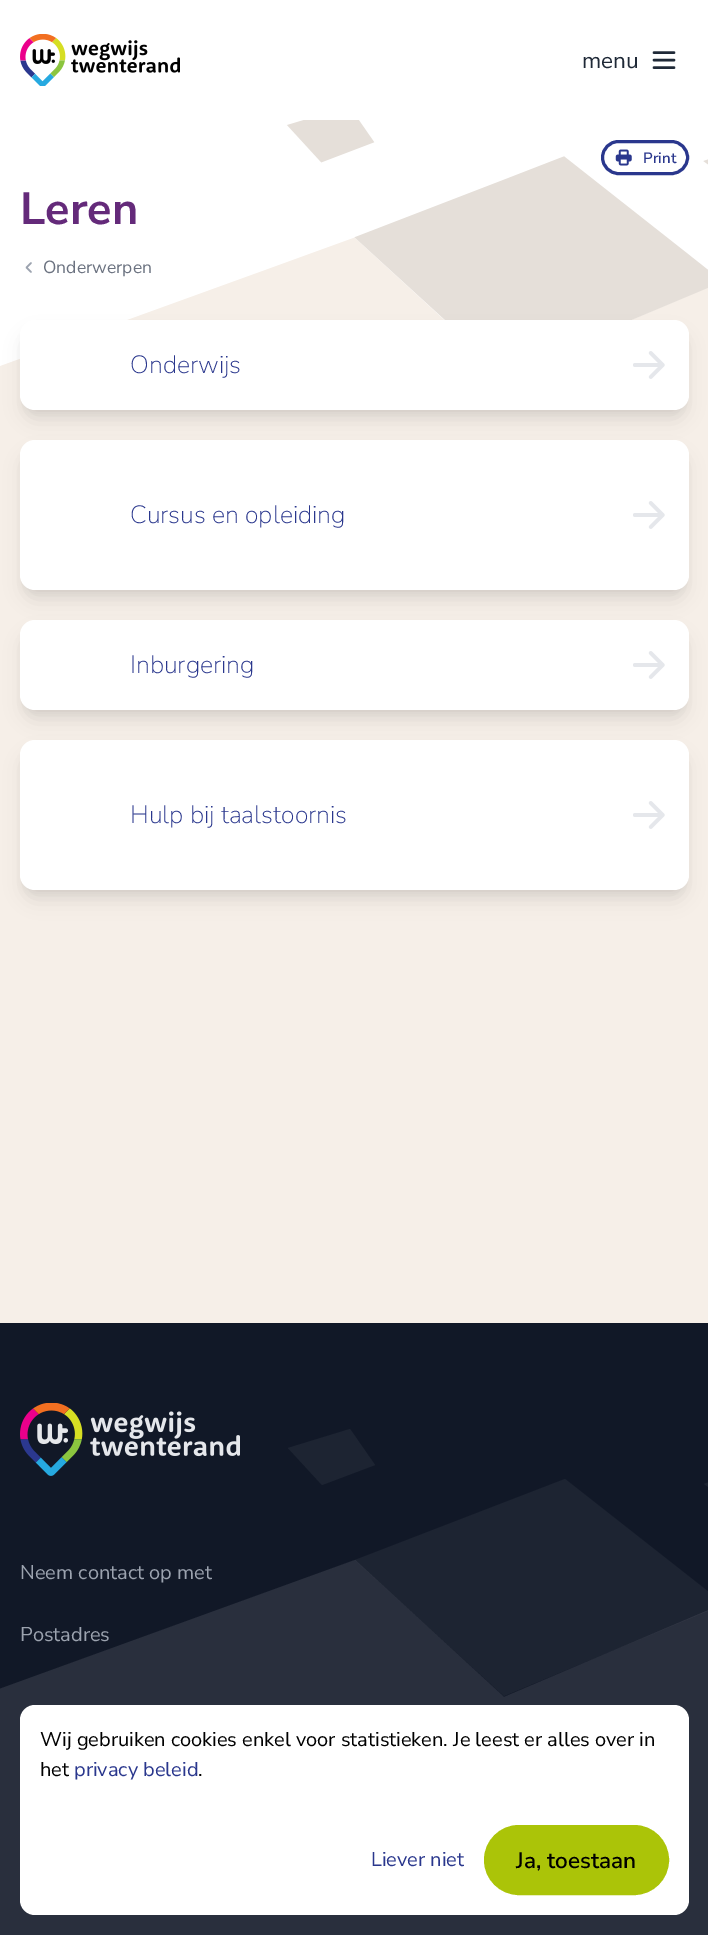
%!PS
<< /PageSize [708 1935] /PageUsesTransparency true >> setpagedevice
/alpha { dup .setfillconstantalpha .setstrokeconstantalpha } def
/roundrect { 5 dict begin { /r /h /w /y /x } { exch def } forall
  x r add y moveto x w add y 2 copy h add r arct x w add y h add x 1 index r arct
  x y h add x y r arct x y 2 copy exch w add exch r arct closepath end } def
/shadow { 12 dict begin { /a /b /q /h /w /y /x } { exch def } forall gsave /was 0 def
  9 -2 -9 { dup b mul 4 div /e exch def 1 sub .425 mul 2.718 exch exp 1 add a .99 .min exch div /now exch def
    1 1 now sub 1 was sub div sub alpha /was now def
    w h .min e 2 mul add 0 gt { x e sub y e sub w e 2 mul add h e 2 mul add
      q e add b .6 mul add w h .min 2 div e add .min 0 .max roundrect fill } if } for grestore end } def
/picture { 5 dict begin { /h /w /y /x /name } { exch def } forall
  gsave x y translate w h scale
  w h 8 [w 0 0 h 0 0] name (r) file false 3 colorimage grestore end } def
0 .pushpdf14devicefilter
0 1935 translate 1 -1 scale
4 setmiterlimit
0.965 0.937 0.91 setrgbcolor
0 0 708 1935 rectfill
(img1.rgb) 0 120 708 254 picture
1 setgray
0 0 708 120 rectfill
(img2.rgb) 20 34 160 52 picture
/NunitoSans-Regular [22.5 0 0 -22.5 0 0] selectfont
0.122 0.161 0.216 setrgbcolor
582 68 moveto (menu) show
2.5 setlinewidth
1 setlinecap
1 setlinejoin
newpath 654 52.5 moveto 674 52.5 lineto 654 60 moveto 674 60 lineto 654 67.5 moveto 674 67.5 lineto stroke
0.165 0.216 0.553 setrgbcolor
3 setlinewidth
0 setlinecap
0 setlinejoin
602.5 141.5 85 32 16 roundrect stroke
(img3.rgb) 615 149 17 17 picture
/NunitoSans-SemiBold [15 0 0 -15 0 0] selectfont
643 163 moveto (Print) show
/NunitoSans-Bold [45 0 0 -45 0 0] selectfont
0.392 0.165 0.478 setrgbcolor
20 224 moveto (Leren) show
0.612 0.639 0.686 setrgbcolor
1.5 setlinewidth
1 setlinecap
1 setlinejoin
newpath 31 272 moveto 26.5 267.5 lineto 31 263 lineto stroke
/NunitoSans-Regular [17.5 0 0 -17.5 0 0] selectfont
0.42 0.447 0.502 setrgbcolor
43 273 moveto (Onderwerpen) show
0 setgray
23 328 663 85 13 4 0.05 shadow
24 336 661 83 11 9.5 0.1 shadow
1 setgray
20 320 669 90 15 roundrect fill
/NunitoSans-ExtraLight [25 0 0 -25 0 0] selectfont
0.165 0.216 0.553 setrgbcolor
130 373 moveto (Onderwijs) show
(img4.rgb) 633 351 32 28 picture
0 setgray
23 448 663 145 13 4 0.05 shadow
24 456 661 143 11 9.5 0.1 shadow
1 setgray
20 440 669 150 15 roundrect fill
0.165 0.216 0.553 setrgbcolor
130 523 moveto (Cursus en opleiding) show
(img4.rgb) 633 501 32 28 picture
0 setgray
23 628 663 85 13 4 0.05 shadow
24 636 661 83 11 9.5 0.1 shadow
1 setgray
20 620 669 90 15 roundrect fill
0.165 0.216 0.553 setrgbcolor
130 673 moveto (Inburgering) show
(img4.rgb) 633 651 32 28 picture
0 setgray
23 748 663 145 13 4 0.05 shadow
24 756 661 143 11 9.5 0.1 shadow
1 setgray
20 740 669 150 15 roundrect fill
0.165 0.216 0.553 setrgbcolor
130 823 moveto (Hulp bij taalstoornis) show
(img4.rgb) 633 801 32 28 picture
0.067 0.094 0.153 setrgbcolor
0 1323 708 374 rectfill
0.161 0.184 0.239 setrgbcolor
newpath 355 1560 moveto 504 1697 lineto 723 1604 lineto 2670 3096 lineto 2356 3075 lineto -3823 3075 lineto closepath eofill
1 setgray
20 1705 669 210 15 roundrect fill
/NunitoSans-Regular [20 0 0 -20 0 0] selectfont
0 setgray
40 1746 moveto (Wij gebruiken cookies enkel voor statistieken. Je leest er alles over in) show
40 1776 moveto (het) show
0.165 0.216 0.553 setrgbcolor
74 1776 moveto (privacy beleid) show
0 setgray
198 1776 moveto (.) show
0.165 0.216 0.553 setrgbcolor
371 1866 moveto (Liever niet) show
0.671 0.769 0.031 setrgbcolor
485.5 1826.5 182 67 33.5 roundrect gsave fill grestore
3 setlinewidth
0 setlinecap
0 setlinejoin
stroke
/NunitoSans-SemiBold [22.5 0 0 -22.5 0 0] selectfont
0 setgray
516 1868 moveto (Ja, toestaan) show
0.05 alpha
1 setgray
newpath 355 1560 moveto 565 1479 lineto 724 1604 lineto 504 1696 lineto closepath eofill
1 alpha
0.114 0.141 0.196 setrgbcolor
newpath 288 1448 moveto 350 1429 lineto 375 1465 lineto 322 1485 lineto closepath eofill
newpath 704 1484 moveto 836 1434 lineto 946 1502 lineto 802 1554 lineto closepath eofill
(img5.rgb) 20 1403 220 73 picture
/NunitoSans-Regular [20 0 0 -20 0 0] selectfont
0.612 0.639 0.686 setrgbcolor
20 1579 moveto (Neem contact op met) show
20 1641 moveto (Postadres) show
.poppdf14devicefilter showpage
